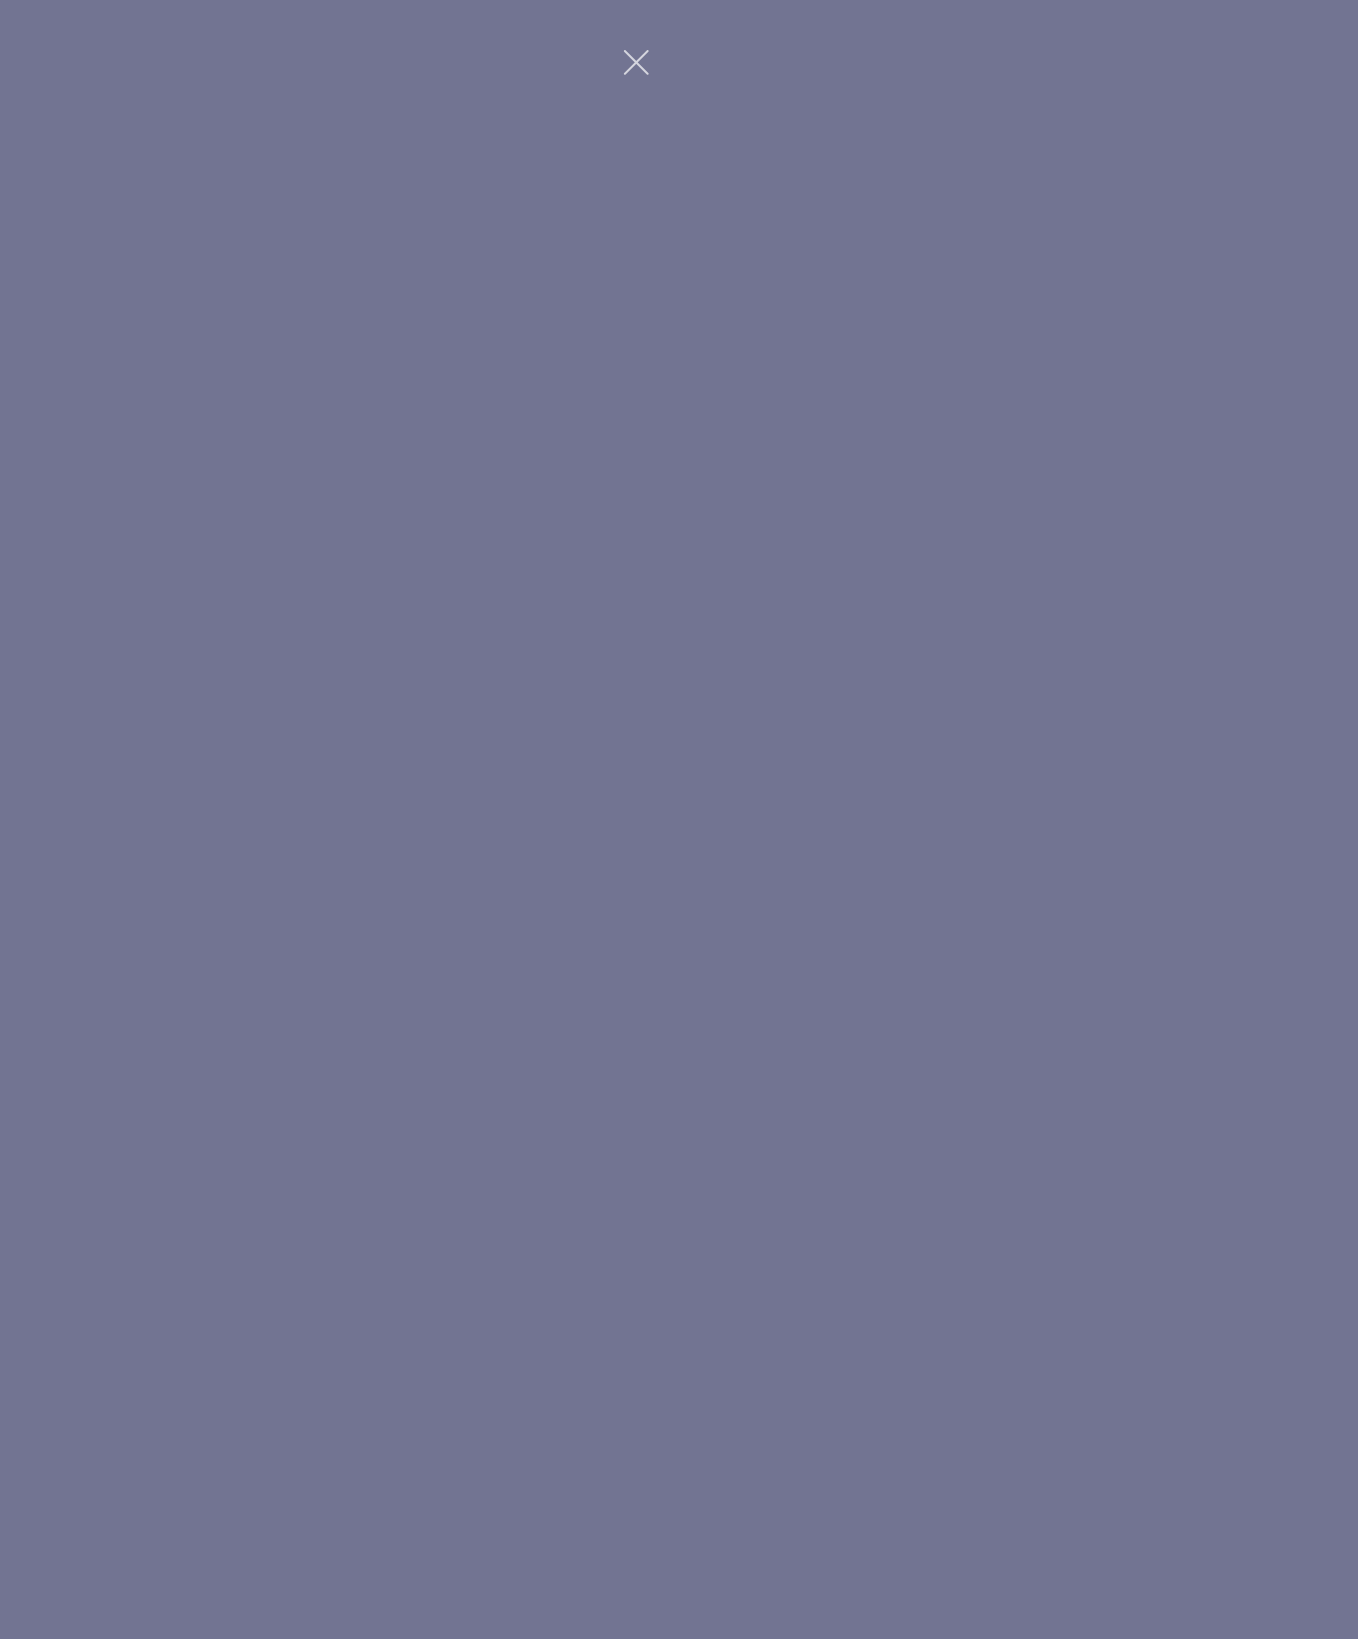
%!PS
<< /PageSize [1358 1639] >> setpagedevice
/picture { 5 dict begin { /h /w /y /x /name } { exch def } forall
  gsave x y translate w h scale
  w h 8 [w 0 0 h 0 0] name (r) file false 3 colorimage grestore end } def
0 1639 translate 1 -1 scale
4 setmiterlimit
0.447 0.455 0.573 setrgbcolor
0 0 1358 1639 rectfill
(img1.rgb) 623 50 26 25 picture
showpage
